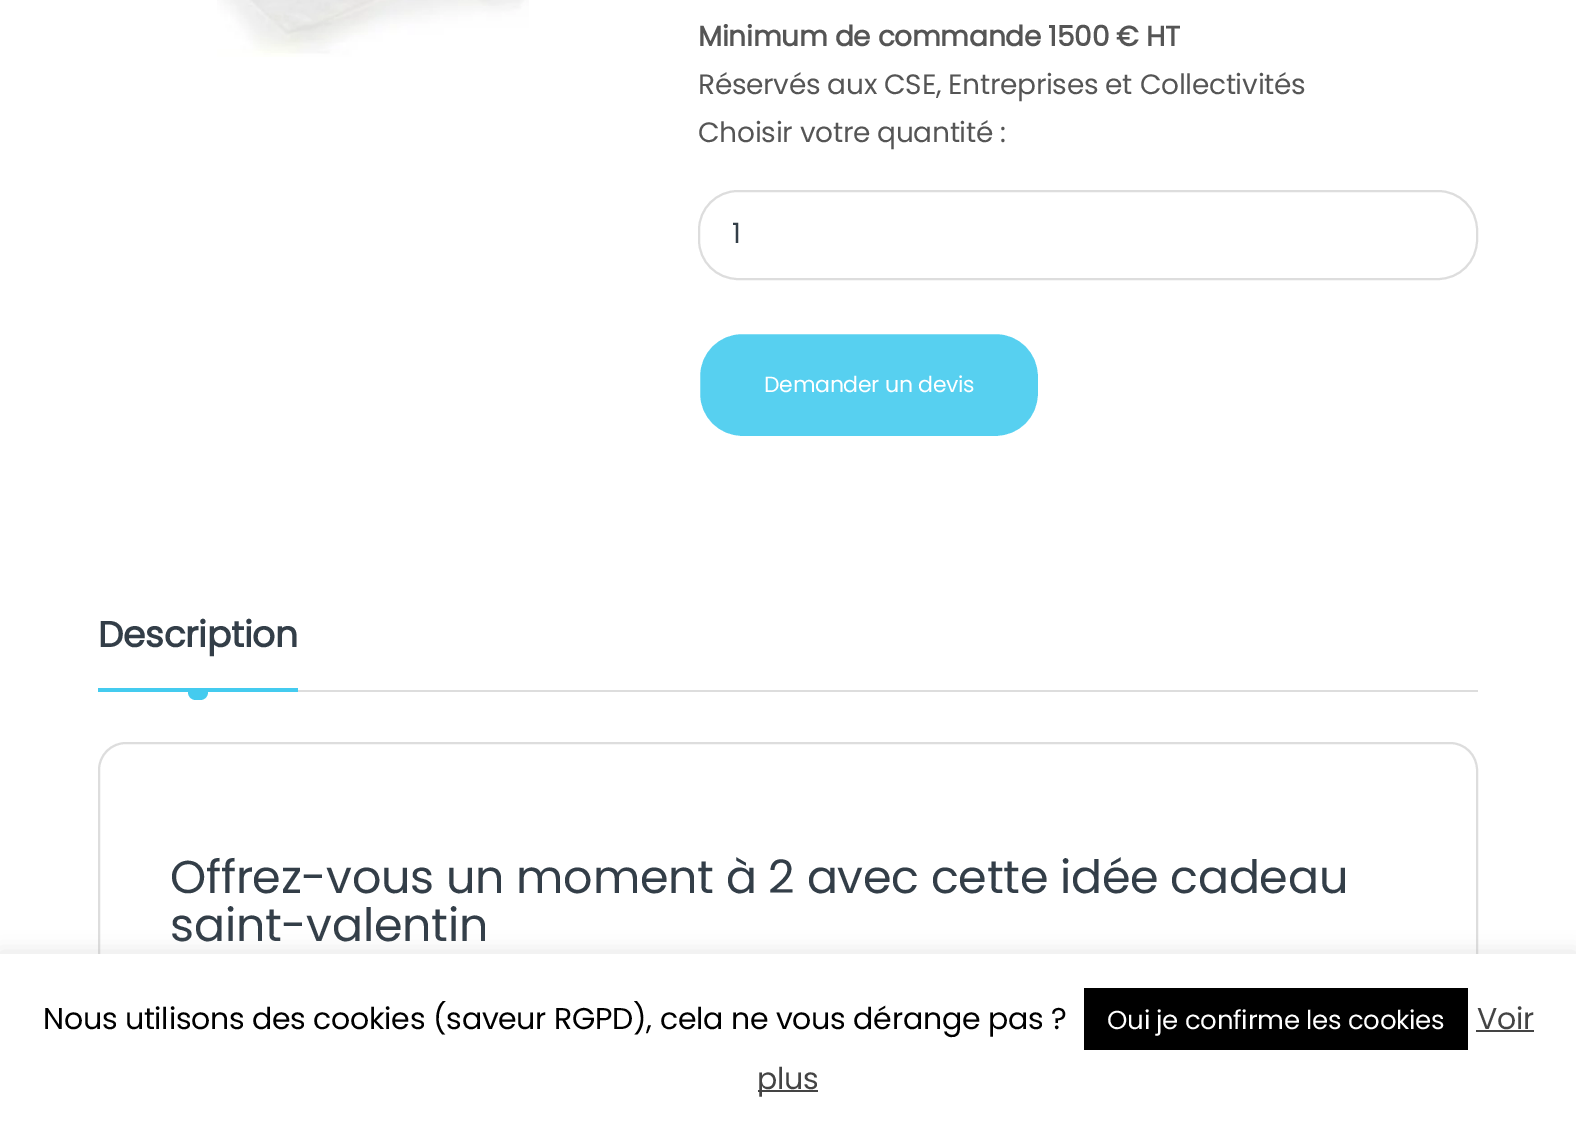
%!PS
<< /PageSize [1576 1128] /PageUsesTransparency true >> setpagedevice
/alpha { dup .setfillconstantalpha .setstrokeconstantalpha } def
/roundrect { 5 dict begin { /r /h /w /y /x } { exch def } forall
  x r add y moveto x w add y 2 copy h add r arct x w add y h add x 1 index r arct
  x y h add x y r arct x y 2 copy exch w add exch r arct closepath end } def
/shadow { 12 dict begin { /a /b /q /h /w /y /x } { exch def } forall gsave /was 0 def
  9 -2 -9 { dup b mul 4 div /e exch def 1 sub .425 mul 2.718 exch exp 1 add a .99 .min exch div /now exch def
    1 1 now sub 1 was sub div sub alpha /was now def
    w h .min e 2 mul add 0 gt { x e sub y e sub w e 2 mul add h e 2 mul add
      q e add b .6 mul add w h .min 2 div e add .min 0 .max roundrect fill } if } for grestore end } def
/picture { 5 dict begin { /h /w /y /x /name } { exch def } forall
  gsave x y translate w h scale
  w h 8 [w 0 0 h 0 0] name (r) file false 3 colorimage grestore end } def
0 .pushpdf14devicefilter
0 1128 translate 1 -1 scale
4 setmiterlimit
1 setgray
0 0 1576 1128 rectfill
(img1.rgb) 217 0 312 57 picture
/Poppins-Bold [28 0 0 -28 0 0] selectfont
0.333 setgray
698 46 moveto -0.28 0 (Minimum de commande 1500 € HT) ashow
/Poppins-Regular [28 0 0 -28 0 0] selectfont
698 94 moveto -0.28 0 (Réservés aux CSE, Entreprises et Collectivités) ashow
698 142 moveto -0.28 0 (Choisir votre quantité :) ashow
0.867 setgray
2 setlinewidth
699 191 778 88 39 roundrect stroke
0.2 0.243 0.282 setrgbcolor
732 243 moveto (1) show
0.341 0.816 0.941 setrgbcolor
699 333 340 104 43 roundrect gsave fill grestore
1 setgray
stroke
/Poppins-Regular [22 0 0 -22 0 0] selectfont
764 392 moveto -0.28 0 (Demander un devis) ashow
/Poppins-Bold [36 0 0 -36 0 0] selectfont
0.2 0.243 0.282 setrgbcolor
98 647 moveto -0.28 0 (Description) ashow
0.267 0.796 0.937 setrgbcolor
98 688 200 4 rectfill
newpath 188 692 moveto 208 692 lineto 208 696.5 204.5 700 200 700 curveto 196 700 lineto 191.5 700 188 696.5 188 692 curveto closepath fill
0.867 setgray
298 690 1180 2 rectfill
99 743 1378 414 27 roundrect stroke
/Poppins-Regular [46 0 0 -46 0 0] selectfont
0.2 0.243 0.282 setrgbcolor
170 893 moveto -0.28 0 (Offrez-vous un moment à 2 avec cette idée cadeau) ashow
170 941 moveto -0.28 0 (saint-valentin) ashow
0.675 0.671 0.671 setrgbcolor
0 952 1576 174 0 10 0.3 shadow
1 setgray
0 954 1576 174 rectfill
/Poppins-Regular [30 0 0 -30 0 0] selectfont
0 setgray
43 1029 moveto -0.28 0 (Nous utilisons des cookies \(saveur RGPD\), cela ne vous dérange pas ?) ashow
1084 988 384 62 rectfill
/Poppins-Regular [26 0 0 -26 0 0] selectfont
1 setgray
1107 1029 moveto -0.28 0 (Oui je confirme les cookies) ashow
/Poppins-Regular [30 0 0 -30 0 0] selectfont
0.267 setgray
1477 1029 moveto -0.28 0 (Voir) ashow
1476 1030 58 2 rectfill
758 1090 60 2 rectfill
757 1089 moveto -0.28 0 (plus) ashow
.poppdf14devicefilter showpage
